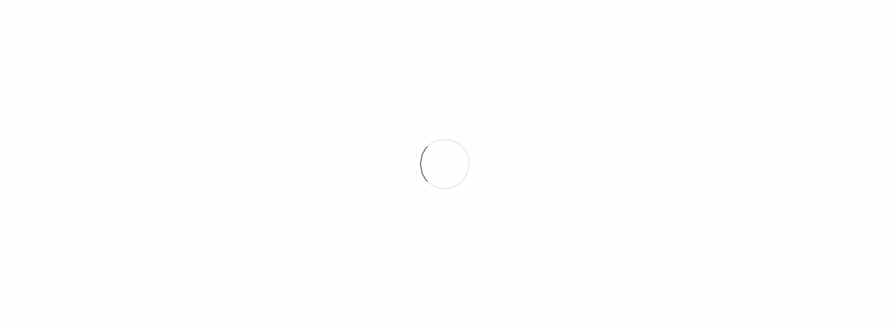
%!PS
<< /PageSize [890 328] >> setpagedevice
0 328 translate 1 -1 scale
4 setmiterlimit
0.996 setgray
0 0 890 328 rectfill
0.918 setgray
newpath 427.5 146.5 moveto 433.5 141 442 138.5 450 140 curveto 478.5 145.5 474 188.5 445 188.5 curveto 438.5 188.5 432 186 427.5 181.5 curveto stroke
0.498 setgray
newpath 427.5 181.5 moveto 418 172 418 156 427.5 146.5 curveto stroke
showpage
